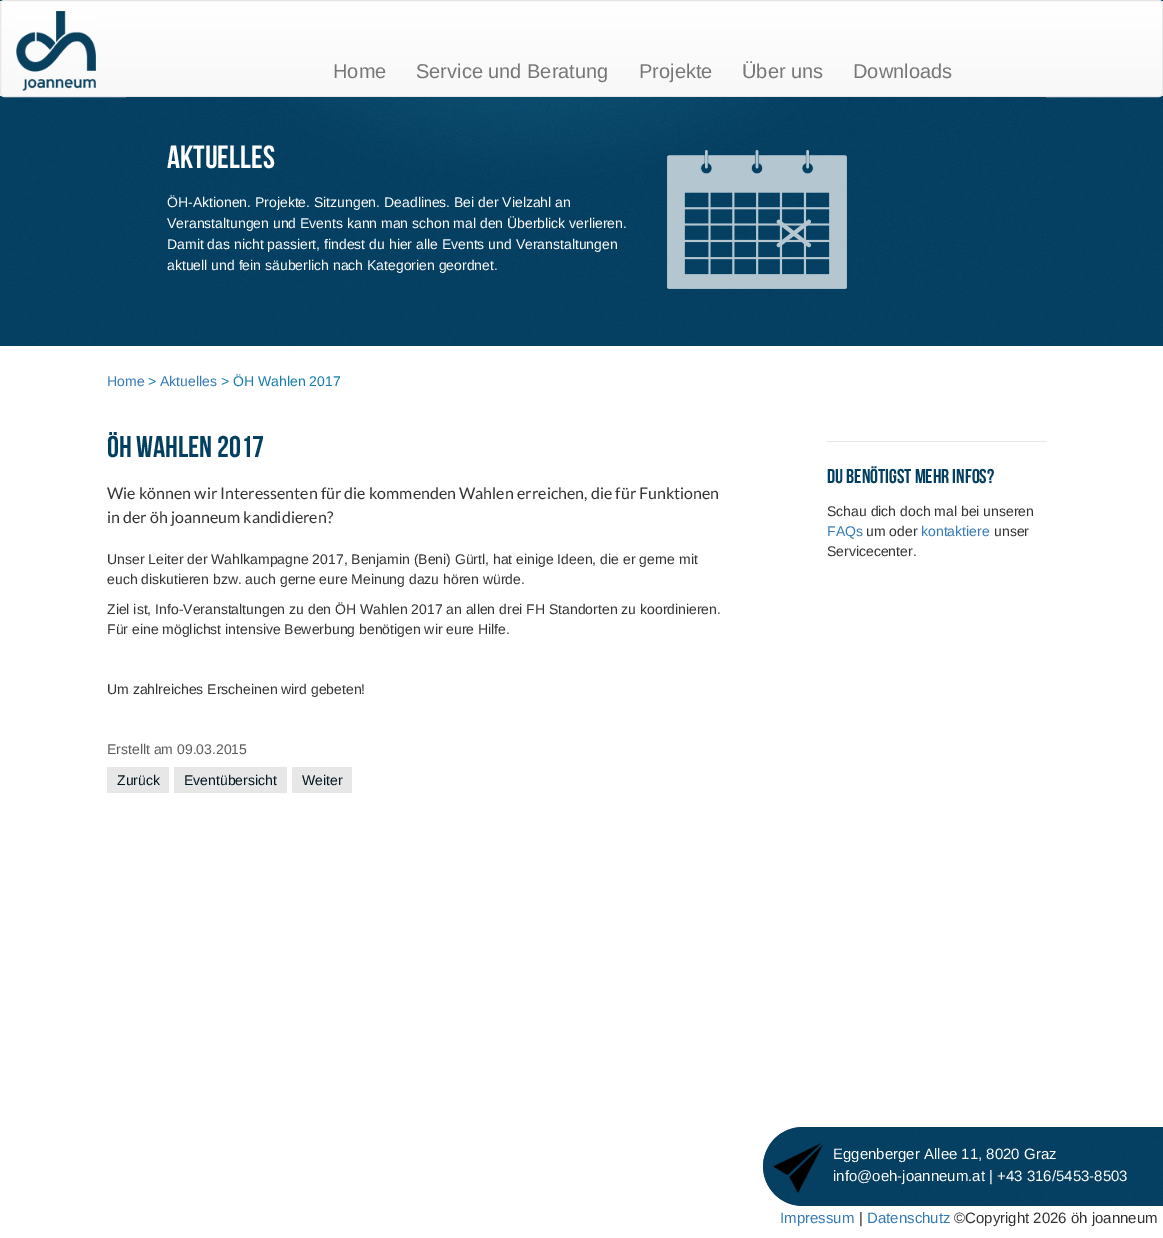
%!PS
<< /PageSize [1163 1238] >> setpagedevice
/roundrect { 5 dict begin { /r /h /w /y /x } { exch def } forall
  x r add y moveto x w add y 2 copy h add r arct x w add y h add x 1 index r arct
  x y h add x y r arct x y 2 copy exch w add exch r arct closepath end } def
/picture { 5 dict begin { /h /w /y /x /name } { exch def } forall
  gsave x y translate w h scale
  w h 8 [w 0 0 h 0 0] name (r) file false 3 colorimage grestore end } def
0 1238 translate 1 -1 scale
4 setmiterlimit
1 setgray
0 0 1163 1238 rectfill
(img2.rgb) 0 0 1163 346 picture
gsave
0 0 1163 97 4 roundrect clip newpath
gsave newpath 0 1 moveto 1163 1 lineto 1163 96 lineto 0 96 lineto closepath clip newpath
<< /ShadingType 2 /ColorSpace /DeviceRGB /Coords [582 1 582 96] /Extend [true true] /Function << /FunctionType 2 /Domain [0 1] /C0 [1 1 1] /C1 [0.973 0.973 0.973] /N 1 >> >> shfill grestore
grestore
0.906 setgray
0.5 0.5 1162 96 3.5 roundrect stroke
(img1.rgb) 16 11 80 80 picture
/LiberationSans-Regular [20 0 0 -20 0 0] selectfont
0.467 setgray
333 78 moveto (Home) show
416 78 moveto (Service und Beratung) show
639 78 moveto (Projekte) show
742 78 moveto (Über uns) show
853 78 moveto (Downloads) show
(img3.rgb) 126 97 920 187 picture
/BebasNeue-Regular [32 0 0 -32 0 0] selectfont
1 setgray
167 168 moveto (AKTUELLES) show
/LiberationSans-Regular [14 0 0 -14 0 0] selectfont
167 207 moveto (ÖH-Aktionen. Projekte. Sitzungen. Deadlines. Bei der Vielzahl an) show
167 228 moveto (Veranstaltungen und Events kann man schon mal den Überblick verlieren.) show
167 249 moveto (Damit das nicht passiert, findest du hier alle Events und Veranstaltungen) show
167 270 moveto (aktuell und fein säuberlich nach Kategorien geordnet.) show
(img4.rgb) 667 150 180 139 picture
0.2 0.478 0.718 setrgbcolor
107 386 moveto (Home) show
0.078 0.482 0.678 setrgbcolor
148 386 moveto (>) show
0.2 0.478 0.718 setrgbcolor
160 386 moveto (Aktuelles) show
0.078 0.482 0.678 setrgbcolor
221 386 moveto (> ÖH Wahlen 2017) show
/BebasNeue-Regular [30 0 0 -30 0 0] selectfont
0.008 0.247 0.38 setrgbcolor
107 457 moveto (ÖH WAHLEN 2017) show
/Lato-Regular [16 0 0 -16 0 0] selectfont
0.2 setgray
107 499 moveto (Wie können wir Interessenten für die kommenden Wahlen erreichen, die für Funktionen) show
107 523 moveto (in der öh joanneum kandidieren?) show
/LiberationSans-Regular [14 0 0 -14 0 0] selectfont
107 564 moveto (Unser Leiter der Wahlkampagne 2017, Benjamin \(Beni\) Gürtl, hat einige Ideen, die er gerne mit) show
107 584 moveto (euch diskutieren bzw. auch gerne eure Meinung dazu hören würde.) show
107 614 moveto (Ziel ist, Info-Veranstaltungen zu den ÖH Wahlen 2017 an allen drei FH Standorten zu koordinieren.) show
107 634 moveto (Für eine möglichst intensive Bewerbung benötigen wir eure Hilfe.) show
107 694 moveto (Um zahlreiches Erscheinen wird gebeten!) show
0.361 setgray
107 754 moveto (Erstellt am 09.03.2015) show
0.906 setgray
107 767 62 26 rectfill
0.004 0.086 0.125 setrgbcolor
117 785 moveto (Zurück) show
0.906 setgray
174 767 113 26 rectfill
0.004 0.086 0.125 setrgbcolor
184 785 moveto (Eventübersicht) show
0.906 setgray
292 767 60 26 rectfill
0.004 0.086 0.125 setrgbcolor
302 785 moveto (Weiter) show
0.906 setgray
827 441 220 1 rectfill
/BebasNeue-Regular [20 0 0 -20 0 0] selectfont
0.008 0.247 0.38 setrgbcolor
827 483 moveto (DU BENöTIGST MEHR INFOS?) show
/LiberationSans-Regular [14 0 0 -14 0 0] selectfont
0.2 setgray
827 516 moveto (Schau dich doch mal bei unseren) show
0.2 0.478 0.718 setrgbcolor
827 536 moveto (FAQs) show
0.2 setgray
866 536 moveto (um oder) show
0.2 0.478 0.718 setrgbcolor
921 536 moveto (kontaktiere) show
0.2 setgray
994 536 moveto (unser) show
827 556 moveto (Servicecenter.) show
0.008 0.247 0.38 setrgbcolor
newpath 802.5 1127 moveto 1163 1127 lineto 1163 1206 lineto 802.5 1206 lineto 780.5 1206 763 1188.5 763 1166.5 curveto 763 1144.5 780.5 1127 802.5 1127 curveto closepath fill
(img5.rgb) 763 1127 400 79 picture
(img6.rgb) 773 1143 50 50 picture
/LiberationSans-Regular [15 0 0 -15 0 0] selectfont
1 setgray
833 1159 moveto (Eggenberger Allee 11, 8020 Graz) show
833 1181 moveto (info@oeh-joanneum.at | +43 316/5453-8503) show
0.2 0.478 0.718 setrgbcolor
780 1223 moveto (Impressum) show
0.2 setgray
859 1223 moveto (|) show
0.2 0.478 0.718 setrgbcolor
867 1223 moveto (Datenschutz) show
0.2 setgray
954 1223 moveto (©Copyright 2026 öh joanneum) show
showpage
